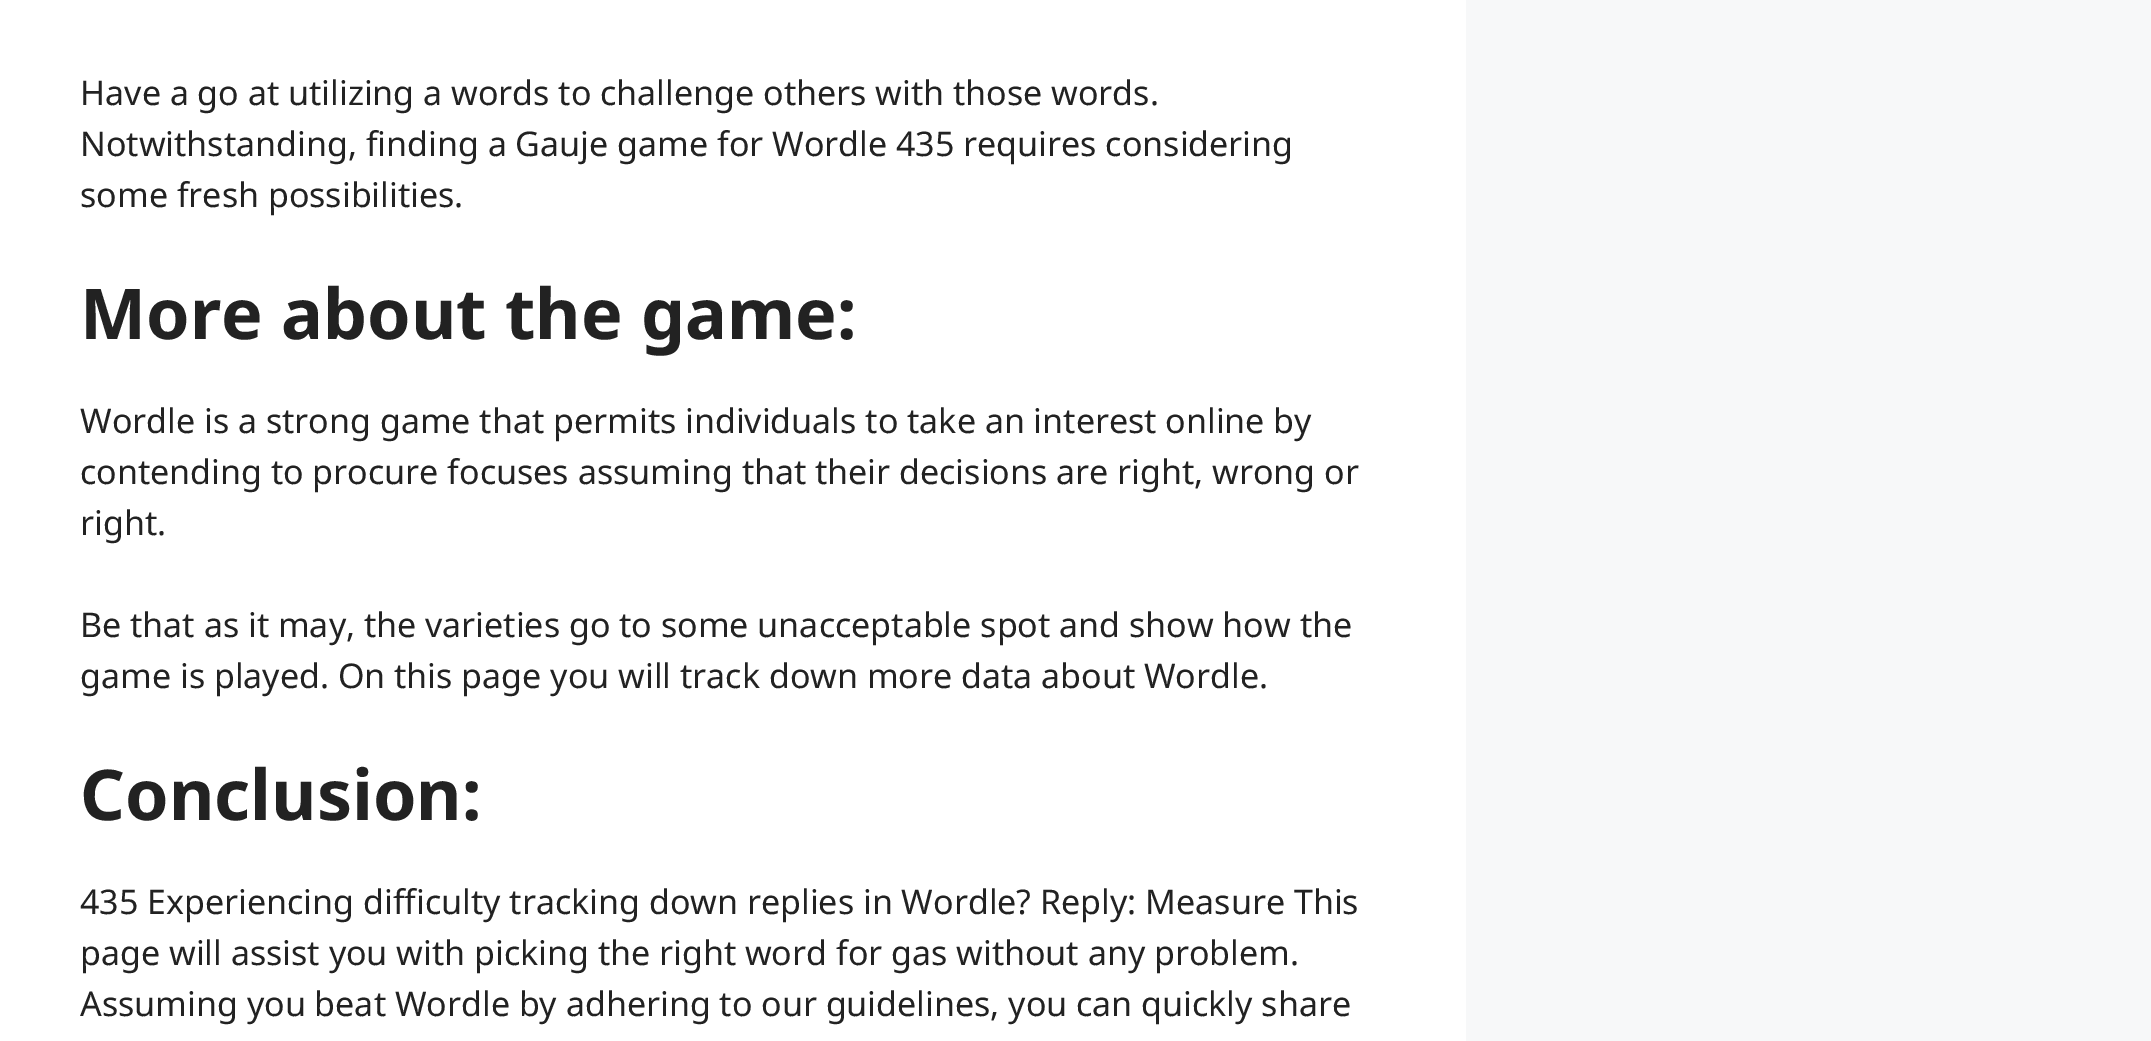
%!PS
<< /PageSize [2151 1041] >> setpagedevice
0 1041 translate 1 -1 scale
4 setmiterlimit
0.969 0.973 0.976 setrgbcolor
0 0 2151 1041 rectfill
1 setgray
0 0 1466 1041 rectfill
/NotoSans-Regular [34 0 0 -34 0 0] selectfont
0.133 setgray
80 105 moveto (Have a go at utilizing a words to challenge others with those words.) show
80 156 moveto (Notwithstanding, finding a Gauje game for Wordle 435 requires considering) show
80 207 moveto (some fresh possibilities.) show
/NotoSans-Bold [70 0 0 -70 0 0] selectfont
80 339 moveto (More about the game:) show
/NotoSans-Regular [34 0 0 -34 0 0] selectfont
80 433 moveto (Wordle is a strong game that permits individuals to take an interest online by) show
80 484 moveto (contending to procure focuses assuming that their decisions are right, wrong or) show
80 535 moveto (right.) show
80 637 moveto (Be that as it may, the varieties go to some unacceptable spot and show how the) show
80 688 moveto (game is played. On this page you will track down more data about Wordle.) show
/NotoSans-Bold [70 0 0 -70 0 0] selectfont
80 820 moveto (Conclusion:) show
/NotoSans-Regular [34 0 0 -34 0 0] selectfont
80 914 moveto (435 Experiencing difficulty tracking down replies in Wordle? Reply: Measure This) show
80 965 moveto (page will assist you with picking the right word for gas without any problem.) show
80 1016 moveto (Assuming you beat Wordle by adhering to our guidelines, you can quickly share) show
showpage
